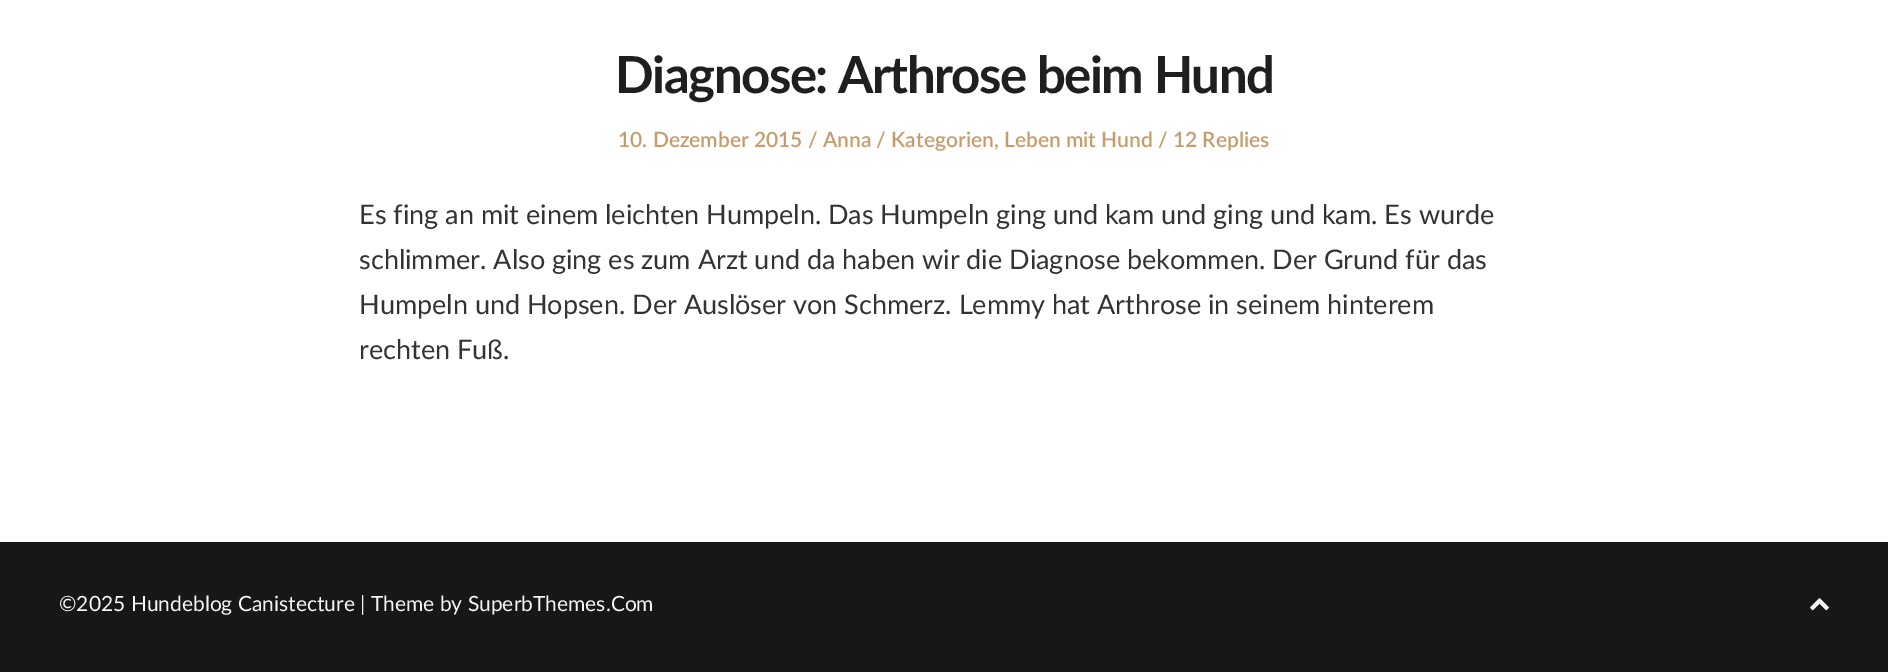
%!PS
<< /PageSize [1888 672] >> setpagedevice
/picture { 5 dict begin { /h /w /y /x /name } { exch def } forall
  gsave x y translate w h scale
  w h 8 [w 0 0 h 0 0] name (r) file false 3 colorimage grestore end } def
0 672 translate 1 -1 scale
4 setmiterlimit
1 setgray
0 0 1888 672 rectfill
/Lato-Bold [51 0 0 -51 0 0] selectfont
0.122 setgray
615 93 moveto -1.5 0 (Diagnose: Arthrose beim Hund) ashow
/Lato-SemiBold [21 0 0 -21 0 0] selectfont
0.776 0.612 0.427 setrgbcolor
618 147 moveto (10. Dezember 2015 / Anna / Kategorien, Leben mit Hund / 12 Replies) show
/Lato-Regular [27 0 0 -27 0 0] selectfont
0.2 setgray
359 224 moveto (Es fing an mit einem leichten Humpeln. Das Humpeln ging und kam und ging und kam. Es wurde) show
359 269 moveto (schlimmer. Also ging es zum Arzt und da haben wir die Diagnose bekommen. Der Grund für das) show
359 314 moveto (Humpeln und Hopsen. Der Auslöser von Schmerz. Lemmy hat Arthrose in seinem hinterem) show
359 359 moveto (rechten Fuß.) show
0.09 setgray
0 542 1888 130 rectfill
/Lato-Regular [21 0 0 -21 0 0] selectfont
0.965 setgray
59 611 moveto (©2025 Hundeblog Canistecture | Theme by SuperbThemes.Com) show
(img1.rgb) 1810 598 19 13 picture
showpage
